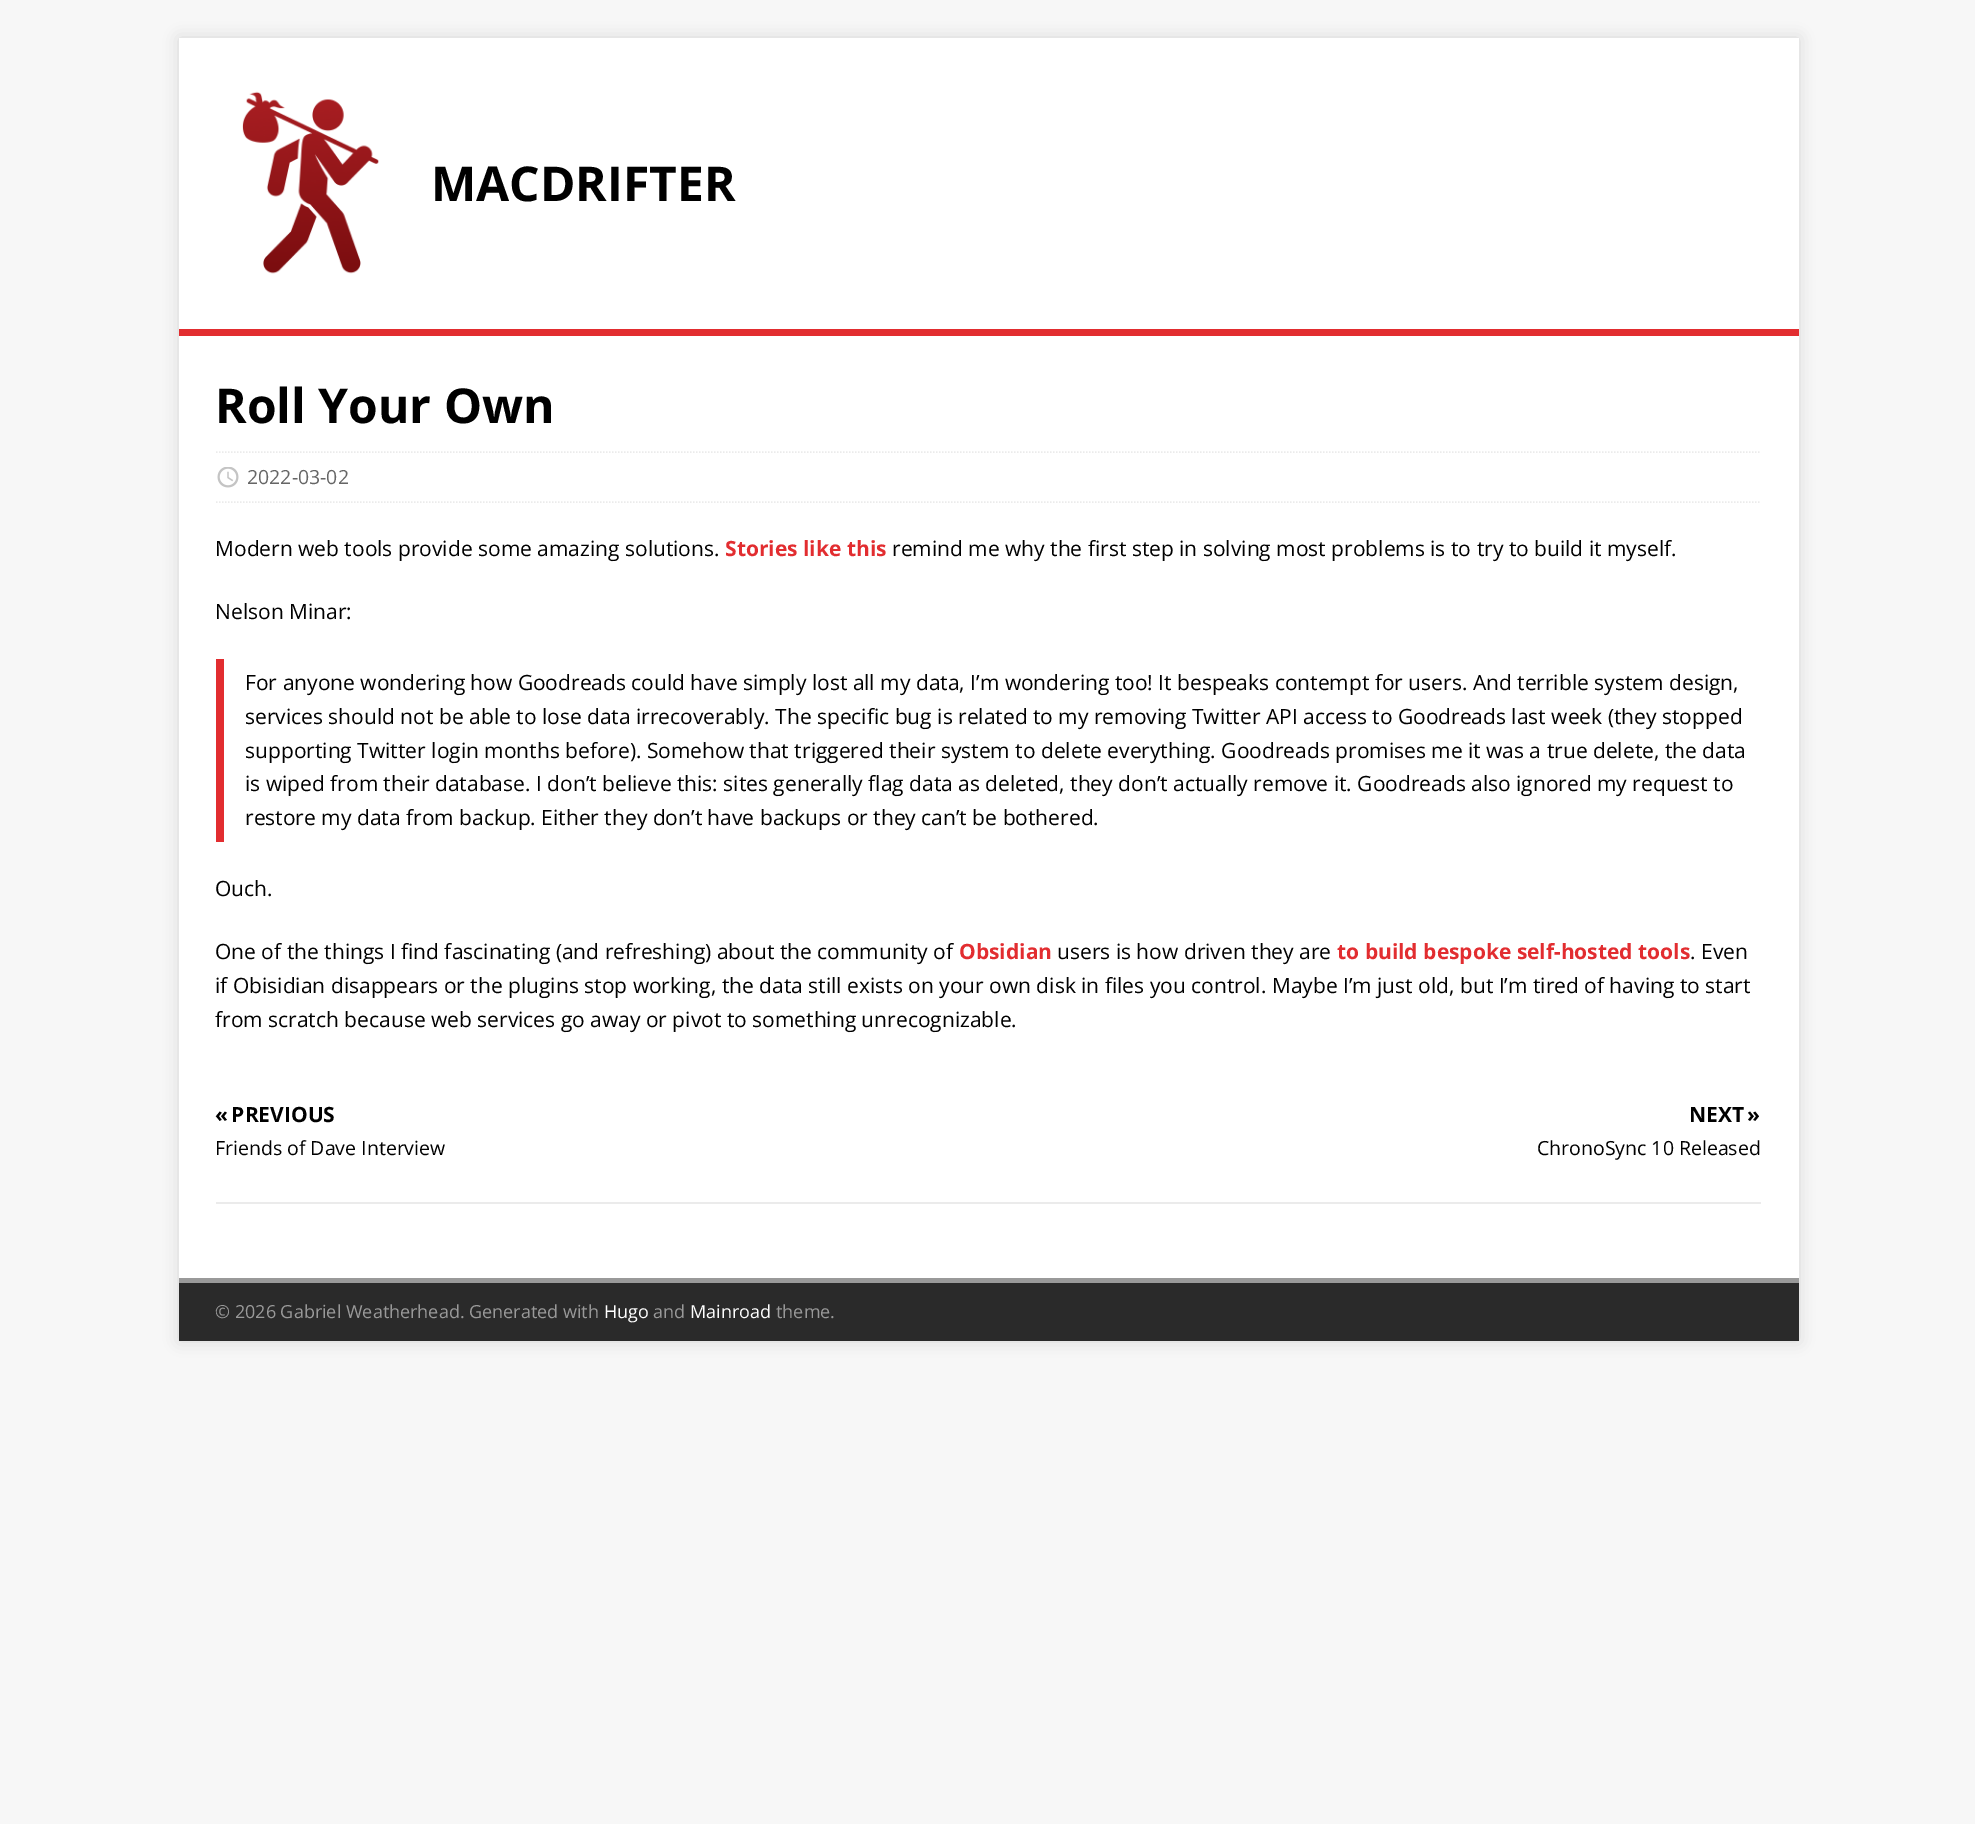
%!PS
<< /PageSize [1975 1824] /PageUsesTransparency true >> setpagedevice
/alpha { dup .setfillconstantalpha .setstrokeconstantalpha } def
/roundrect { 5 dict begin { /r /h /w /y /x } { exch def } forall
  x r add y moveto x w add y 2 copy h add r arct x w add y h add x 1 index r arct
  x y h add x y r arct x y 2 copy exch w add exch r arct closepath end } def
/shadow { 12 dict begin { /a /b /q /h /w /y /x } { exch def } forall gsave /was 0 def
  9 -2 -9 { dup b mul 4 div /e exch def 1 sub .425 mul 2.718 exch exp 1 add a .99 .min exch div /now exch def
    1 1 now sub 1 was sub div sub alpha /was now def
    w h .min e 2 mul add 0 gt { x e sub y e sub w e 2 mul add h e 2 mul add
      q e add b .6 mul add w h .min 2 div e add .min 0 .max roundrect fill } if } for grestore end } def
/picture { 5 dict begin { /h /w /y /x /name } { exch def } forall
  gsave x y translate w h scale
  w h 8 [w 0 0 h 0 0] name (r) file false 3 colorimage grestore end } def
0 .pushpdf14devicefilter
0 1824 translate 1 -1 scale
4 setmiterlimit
0.969 setgray
0 0 1975 1824 rectfill
0.196 setgray
179 38 1620 1303 0 7.5 0.17 shadow
1 setgray
179 38 1620 291 rectfill
(img1.rgb) 242 91 137 183 picture
/OpenSans-Bold [48 0 0 -48 0 0] selectfont
0 setgray
431 201 moveto (MACDRIFTER) show
0.886 0.176 0.188 setrgbcolor
179 329 1620 7 rectfill
1 setgray
179 336 1620 942 rectfill
0 setgray
215 423 moveto (Roll Your Own) show
0.922 setgray
1.5 setlinewidth
[1.5 1.5] 0 setdash
newpath 216 452 moveto 1761 452 lineto stroke
newpath 216 502 moveto 1761 502 lineto stroke
(img2.rgb) 217 467 22 21 picture
/OpenSans-Regular [19.5 0 0 -19.5 0 0] selectfont
0.4 setgray
247 484 moveto (2022-03-02) show
/OpenSans-Regular [21 0 0 -21 0 0] selectfont
0 setgray
215 556 moveto (Modern web tools provide some amazing solutions.) show
/OpenSans-Bold [21 0 0 -21 0 0] selectfont
0.886 0.176 0.188 setrgbcolor
725 556 moveto (Stories like this) show
/OpenSans-Regular [21 0 0 -21 0 0] selectfont
0 setgray
892 556 moveto (remind me why the first step in solving most problems is to try to build it myself.) show
215 619 moveto (Nelson Minar:) show
0.886 0.176 0.188 setrgbcolor
216 659 8 183 rectfill
0 setgray
245 690 moveto (For anyone wondering how Goodreads could have simply lost all my data, I’m wondering too! It bespeaks contempt for users. And terrible system design,) show
245 724 moveto (services should not be able to lose data irrecoverably. The specific bug is related to my removing Twitter API access to Goodreads last week \(they stopped) show
245 758 moveto (supporting Twitter login months before\). Somehow that triggered their system to delete everything. Goodreads promises me it was a true delete, the data) show
245 791 moveto (is wiped from their database. I don’t believe this: sites generally flag data as deleted, they don’t actually remove it. Goodreads also ignored my request to) show
245 825 moveto (restore my data from backup. Either they don’t have backups or they can’t be bothered.) show
215 896 moveto (Ouch.) show
215 959 moveto (One of the things I find fascinating \(and refreshing\) about the community of) show
/OpenSans-Bold [21 0 0 -21 0 0] selectfont
0.886 0.176 0.188 setrgbcolor
959 959 moveto (Obsidian) show
/OpenSans-Regular [21 0 0 -21 0 0] selectfont
0 setgray
1057 959 moveto (users is how driven they are) show
/OpenSans-Bold [21 0 0 -21 0 0] selectfont
0.886 0.176 0.188 setrgbcolor
1337 959 moveto (to build bespoke self-hosted tools) show
/OpenSans-Regular [21 0 0 -21 0 0] selectfont
0 setgray
1690 959 moveto (. Even) show
215 993 moveto (if Obisidian disappears or the plugins stop working, the data still exists on your own disk in files you control. Maybe I’m just old, but I’m tired of having to start) show
215 1027 moveto (from scratch because web services go away or pivot to something unrecognizable.) show
0.922 setgray
216 1202 1545 2 rectfill
/OpenSans-Bold [21 0 0 -21 0 0] selectfont
0 setgray
215 1122 moveto (« PREVIOUS) show
/OpenSans-Regular [19.5 0 0 -19.5 0 0] selectfont
215 1155 moveto (Friends of Dave Interview) show
/OpenSans-Bold [21 0 0 -21 0 0] selectfont
1689 1122 moveto (NEXT ») show
/OpenSans-Regular [19.5 0 0 -19.5 0 0] selectfont
1537 1155 moveto (ChronoSync 10 Released) show
0.165 setgray
179 1283 1620 58 rectfill
0.6 setgray
179 1278 1620 5 rectfill
/OpenSans-Regular [18 0 0 -18 0 0] selectfont
215 1318 moveto (© 2026 Gabriel Weatherhead. Generated with) show
1 setgray
604 1318 moveto (Hugo) show
0.6 setgray
653 1318 moveto (and) show
1 setgray
690 1318 moveto (Mainroad) show
0.6 setgray
776 1318 moveto (theme.) show
.poppdf14devicefilter showpage
